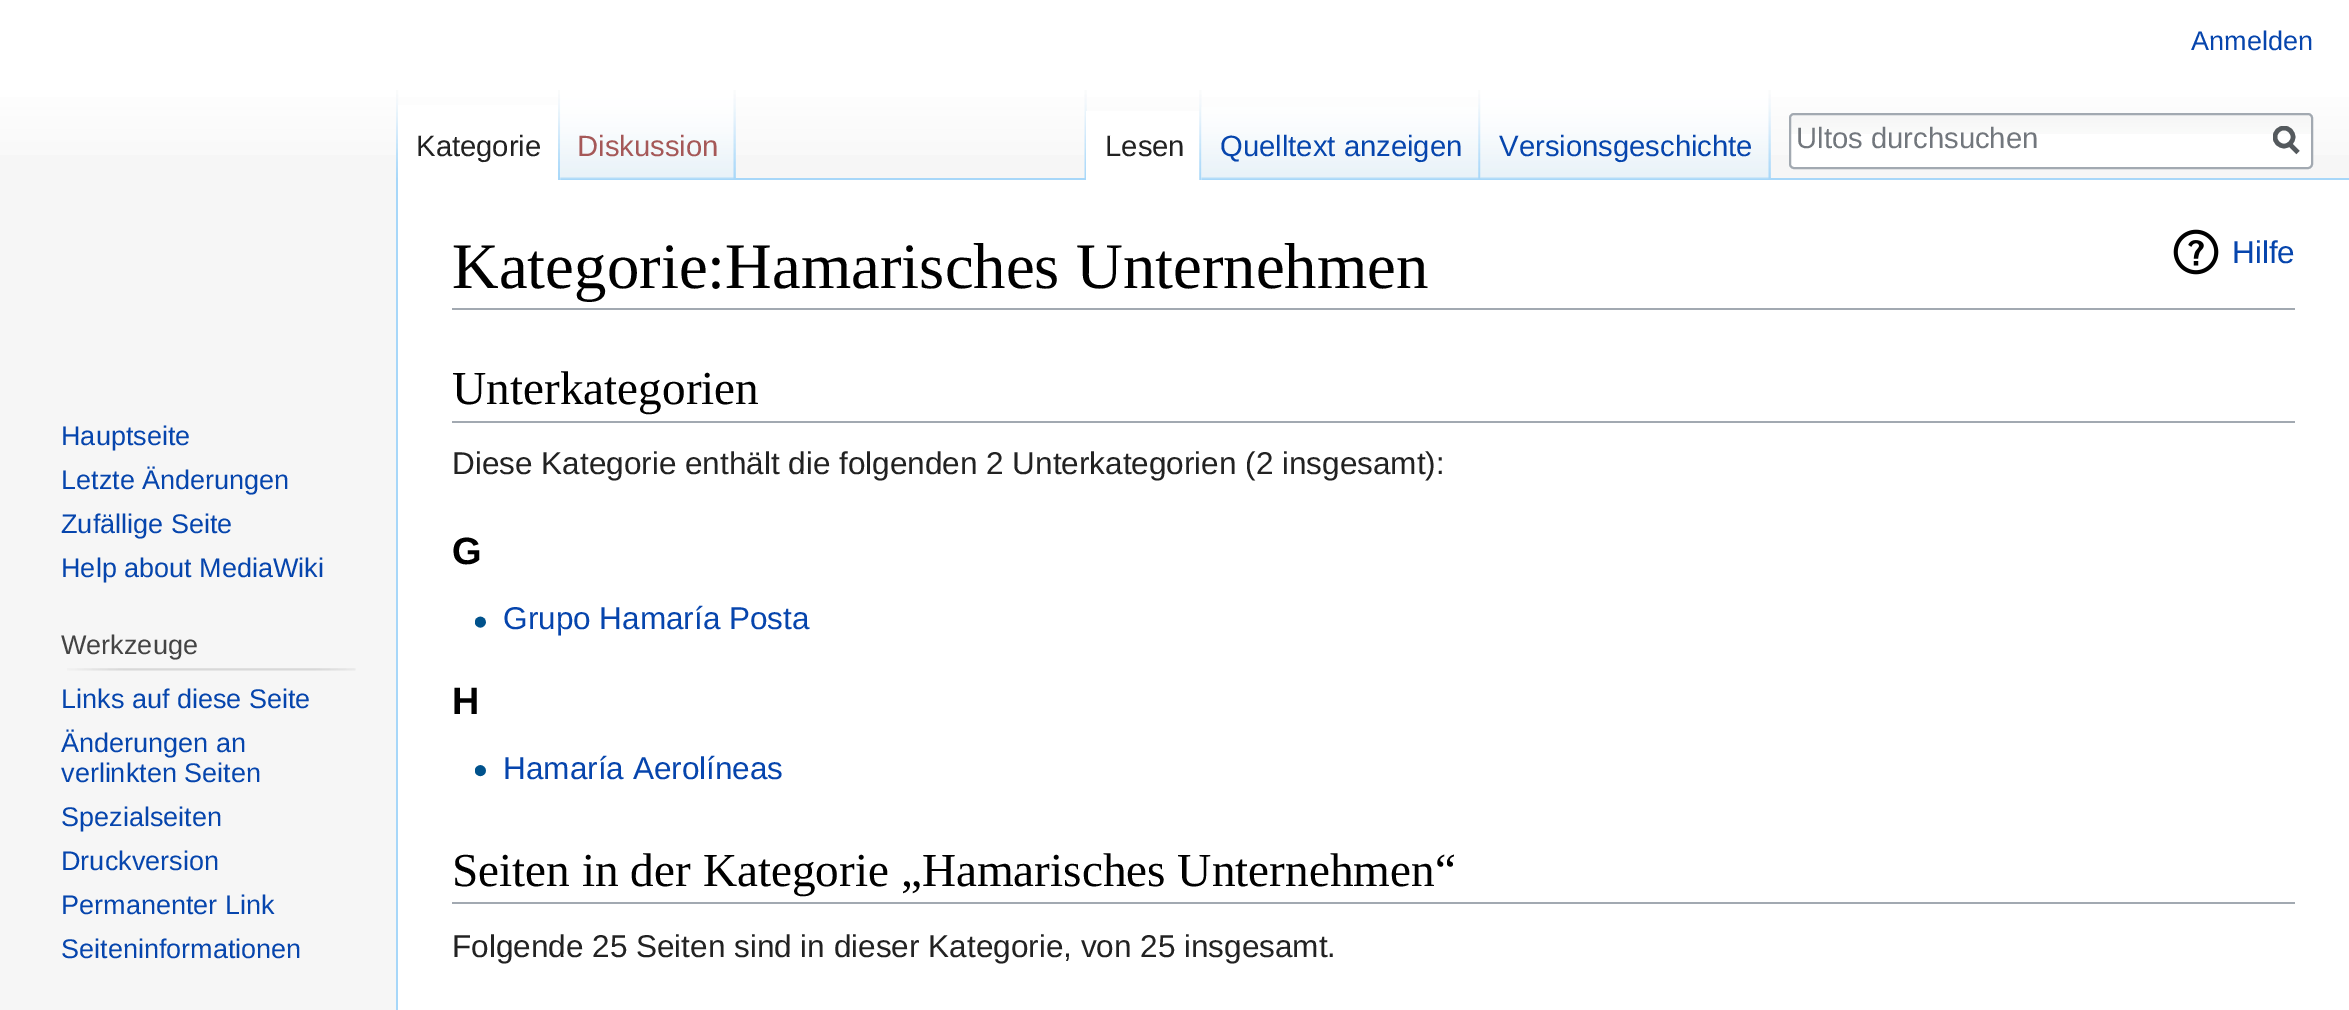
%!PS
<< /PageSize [2349 1010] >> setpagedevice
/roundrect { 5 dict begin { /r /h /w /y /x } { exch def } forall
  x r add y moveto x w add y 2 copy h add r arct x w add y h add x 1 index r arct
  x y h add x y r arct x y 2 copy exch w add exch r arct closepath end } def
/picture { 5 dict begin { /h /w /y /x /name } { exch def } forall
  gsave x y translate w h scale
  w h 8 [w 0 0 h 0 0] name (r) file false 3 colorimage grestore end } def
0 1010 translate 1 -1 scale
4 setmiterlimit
0.965 setgray
0 0 2349 1010 rectfill
gsave newpath 0 0 moveto 2349 0 lineto 2349 155 lineto 0 155 lineto closepath clip newpath
<< /ShadingType 2 /ColorSpace /DeviceRGB /Coords [1175 0 1175 180] /Extend [true true] /Function << /FunctionType 3 /Domain [0 1] /Functions [<< /FunctionType 2 /Domain [0 1] /C0 [1 1 1] /C1 [1 1 1] /N 1 >> << /FunctionType 2 /Domain [0 1] /C0 [1 1 1] /C1 [0.965 0.965 0.965] /N 1 >>] /Bounds [0.5] /Encode [0 1 0 1] >> >> shfill grestore
/LiberationSans-Regular [27 0 0 -27 0 0] selectfont
0.024 0.271 0.678 setrgbcolor
2191 50 moveto (Anmelden) show
(img1.rgb) 396 90 3 88 picture
(img2.rgb) 735 90 1 88 picture
1 setgray
398 105 163 75 rectfill
(img3.rgb) 558 90 3 90 picture
/LiberationSans-Regular [29.25 0 0 -29.25 0 0] selectfont
0.133 setgray
416 156 moveto (Kategorie) show
0.655 0.843 0.976 setrgbcolor
735 178 1614 2 rectfill
(img4.rgb) 560 90 176 90 picture
(img5.rgb) 733 90 3 89 picture
0.647 0.345 0.345 setrgbcolor
577 156 moveto (Diskussion) show
(img6.rgb) 1084 90 3 88 picture
(img2.rgb) 1770 90 1 88 picture
1 setgray
1086 111 116 69 rectfill
(img7.rgb) 1199 90 3 90 picture
0.133 setgray
1105 156 moveto (Lesen) show
(img8.rgb) 1201 107 280 73 picture
(img9.rgb) 1478 90 3 89 picture
0.024 0.271 0.678 setrgbcolor
1220 156 moveto (Quelltext anzeigen) show
(img10.rgb) 1480 90 291 89 picture
(img5.rgb) 1768 90 3 89 picture
1499 156 moveto (Versionsgeschichte) show
1 setgray
1789 113 524 56 5 roundrect fill
(img11.rgb) 1789 115 524 19 picture
0.635 0.663 0.694 setrgbcolor
2 setlinewidth
1790 114 522 54 4 roundrect stroke
0.447 0.467 0.49 setrgbcolor
1796 148 moveto (Ultos durchsuchen) show
0.329 0.349 0.365 setrgbcolor
4.5 setlinewidth
newpath 2298 152.5 moveto 2289 143.5 lineto stroke
gsave
2273 126 27 29 rectclip
newpath 2284 137 9 0 360 arc closepath stroke
grestore
/LiberationSans-Regular [27 0 0 -27 0 0] selectfont
0.024 0.271 0.678 setrgbcolor
61 445 moveto (Hauptseite) show
61 489 moveto (Letzte Änderungen) show
61 533 moveto (Zufällige Seite) show
61 577 moveto (Help about MediaWiki) show
0.267 setgray
61 654 moveto (Werkzeuge) show
(img12.rgb) 67 668 289 3 picture
0.024 0.271 0.678 setrgbcolor
61 708 moveto (Links auf diese Seite) show
61 752 moveto (Änderungen an) show
61 782 moveto (verlinkten Seiten) show
61 826 moveto (Spezialseiten) show
61 870 moveto (Druckversion) show
61 914 moveto (Permanenter Link) show
61 958 moveto (Seiteninformationen) show
1 setgray
398 180 1951 830 rectfill
0.655 0.843 0.976 setrgbcolor
396 178 2 832 rectfill
0.635 0.663 0.694 setrgbcolor
452 308 1843 2 rectfill
/LiberationSerif-Regular [64.75 0 0 -64.75 0 0] selectfont
0 setgray
452 288 moveto (Kategorie:Hamarisches Unternehmen) show
(img13.rgb) 2173 229 46 46 picture
/LiberationSans-Regular [31.5 0 0 -31.5 0 0] selectfont
0.024 0.271 0.678 setrgbcolor
2232 263 moveto (Hilfe) show
0.635 0.663 0.694 setrgbcolor
452 421 1843 2 rectfill
/LiberationSerif-Regular [47.25 0 0 -47.25 0 0] selectfont
0 setgray
452 404 moveto (Unterkategorien) show
/LiberationSans-Regular [31.5 0 0 -31.5 0 0] selectfont
0.133 setgray
452 474 moveto (Diese Kategorie enthält die folgenden 2 Unterkategorien \(2 insgesamt\):) show
/LiberationSans-Bold [38 0 0 -38 0 0] selectfont
0 setgray
452 564 moveto (G) show
(img14.rgb) 475 616 11 12 picture
/LiberationSans-Regular [31.5 0 0 -31.5 0 0] selectfont
0.024 0.271 0.678 setrgbcolor
503 629 moveto (Grupo Hamaría Posta) show
/LiberationSans-Bold [38 0 0 -38 0 0] selectfont
0 setgray
452 714 moveto (H) show
(img15.rgb) 475 765 11 12 picture
/LiberationSans-Regular [31.5 0 0 -31.5 0 0] selectfont
0.024 0.271 0.678 setrgbcolor
503 779 moveto (Hamaría Aerolíneas) show
0.635 0.663 0.694 setrgbcolor
452 902 1843 2 rectfill
/LiberationSerif-Regular [47.25 0 0 -47.25 0 0] selectfont
0 setgray
452 886 moveto (Seiten in der Kategorie „Hamarisches Unternehmen“) show
/LiberationSans-Regular [31.5 0 0 -31.5 0 0] selectfont
0.133 setgray
452 957 moveto (Folgende 25 Seiten sind in dieser Kategorie, von 25 insgesamt.) show
showpage
